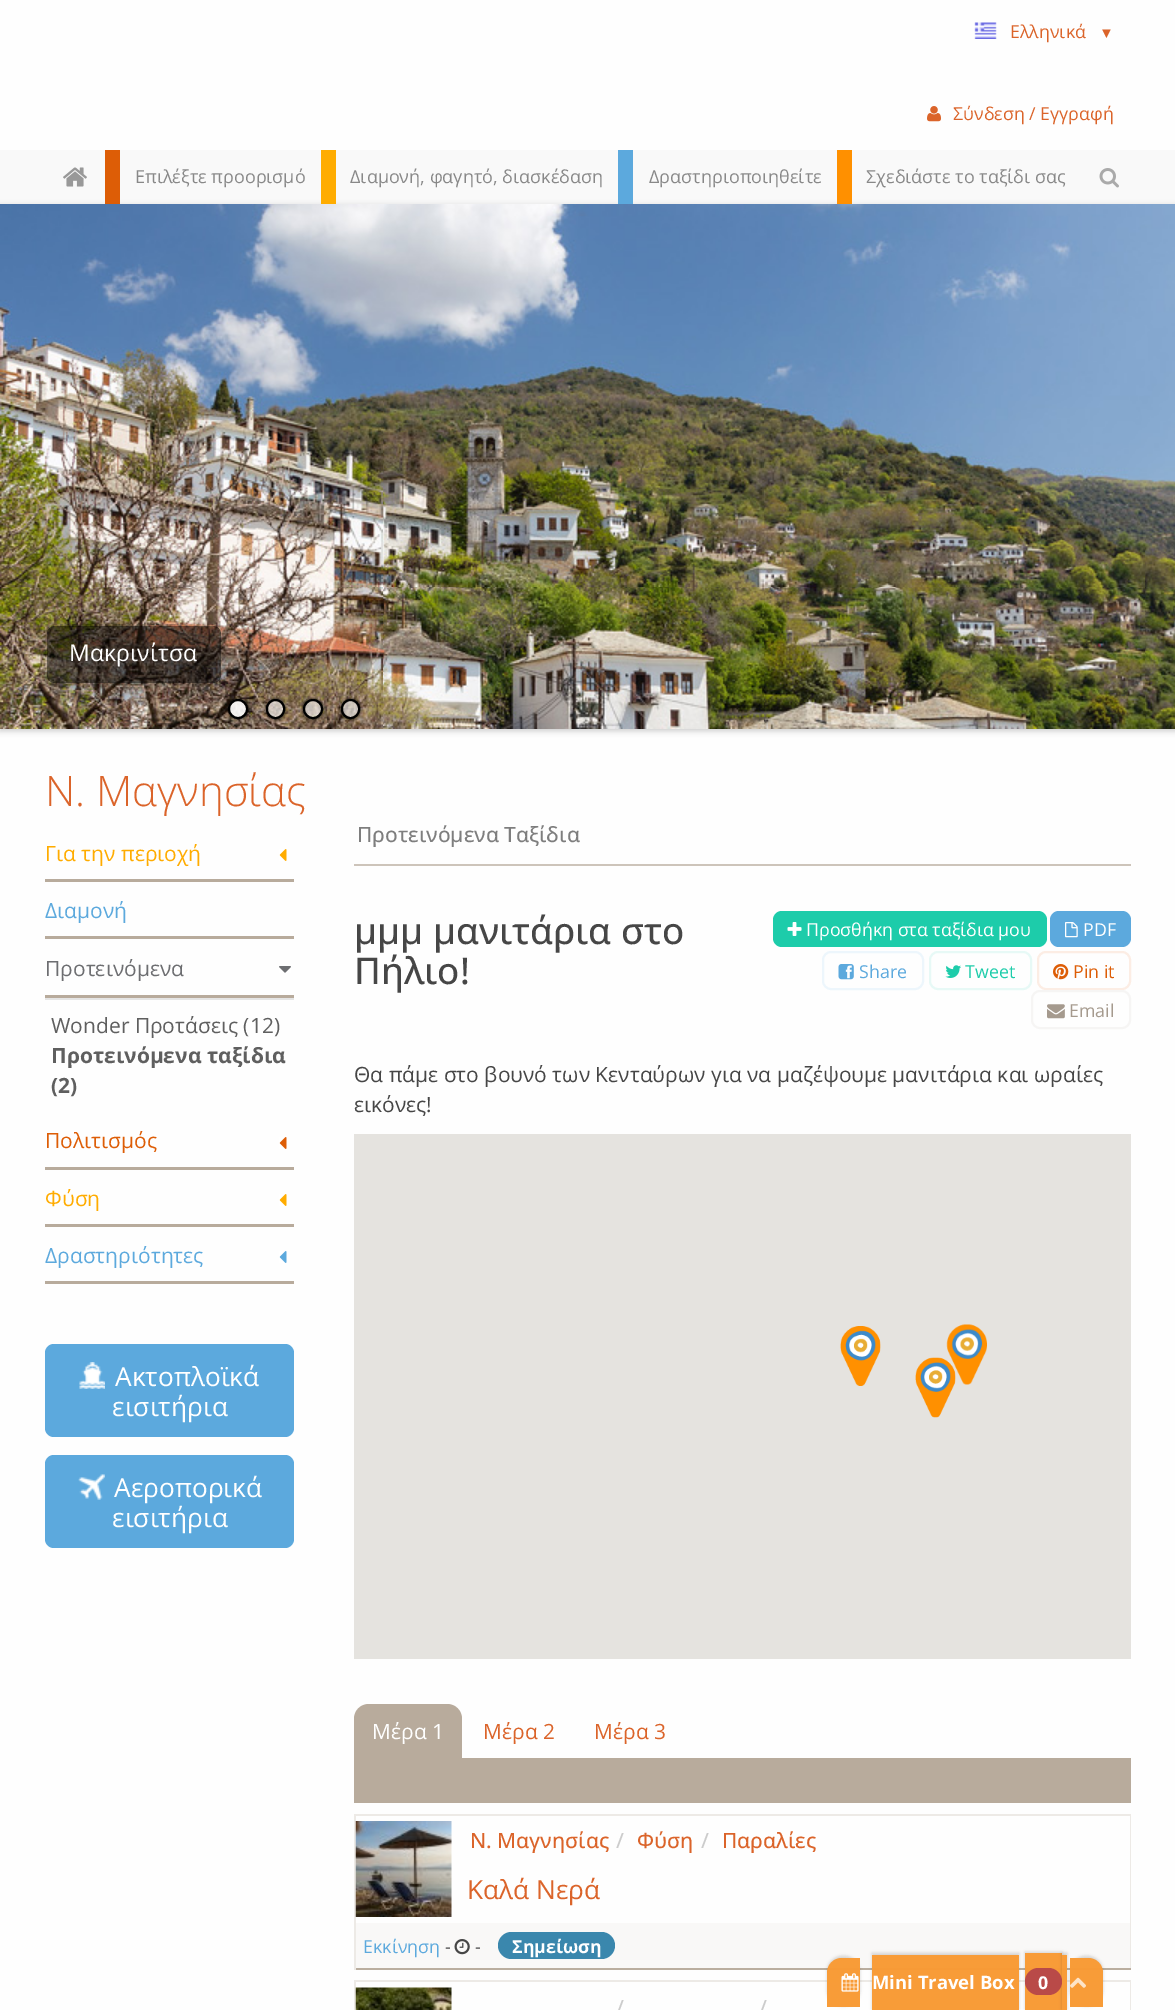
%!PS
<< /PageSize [1175 2010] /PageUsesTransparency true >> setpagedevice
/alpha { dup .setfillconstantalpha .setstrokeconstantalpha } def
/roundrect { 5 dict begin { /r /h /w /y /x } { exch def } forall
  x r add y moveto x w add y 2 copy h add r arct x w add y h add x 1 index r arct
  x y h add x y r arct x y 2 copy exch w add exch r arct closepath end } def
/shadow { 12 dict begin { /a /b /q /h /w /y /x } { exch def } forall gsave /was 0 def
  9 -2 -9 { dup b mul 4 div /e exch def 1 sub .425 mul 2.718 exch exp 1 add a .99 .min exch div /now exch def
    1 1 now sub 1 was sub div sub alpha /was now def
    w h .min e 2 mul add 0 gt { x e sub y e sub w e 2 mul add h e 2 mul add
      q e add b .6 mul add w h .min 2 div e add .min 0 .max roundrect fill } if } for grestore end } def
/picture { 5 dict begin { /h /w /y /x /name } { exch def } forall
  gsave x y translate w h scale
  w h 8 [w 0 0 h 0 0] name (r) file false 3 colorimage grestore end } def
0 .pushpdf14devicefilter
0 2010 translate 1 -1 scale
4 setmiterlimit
0.996 setgray
0 0 1175 2010 rectfill
(img1.rgb) 974 22 23 17 picture
/OpenSans-Regular [17.8 0 0 -17.8 0 0] selectfont
0.859 0.392 0.165 setrgbcolor
1010 38 moveto (Ελληνικά) show
/LiberationSans-Regular [15 0 0 -15 0 0] selectfont
1099 38 moveto (▼) show
0.976 setgray
0 150 1175 54 rectfill
(img2.rgb) 927 106 14 16 picture
/OpenSans-Regular [17.8 0 0 -17.8 0 0] selectfont
0.859 0.392 0.165 setrgbcolor
953 120 moveto (Σύνδεση / Εγγραφή) show
(img3.rgb) 63 167 24 20 picture
0 setgray
0 206 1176 525 0 3 0.2 shadow
0.867 0.365 0.024 setrgbcolor
105 150 15 54 rectfill
/OpenSans-Regular [18 0 0 -18 0 0] selectfont
0.533 setgray
135 183 moveto (Επιλέξτε προορισμό) show
1 0.675 0 setrgbcolor
321 150 15 54 rectfill
0.533 setgray
350 183 moveto (Διαμονή, φαγητό, διασκέδαση) show
0.361 0.663 0.867 setrgbcolor
618 150 15 54 rectfill
0.533 setgray
649 183 moveto (Δραστηριοποιηθείτε) show
1 0.565 0 setrgbcolor
837 150 15 54 rectfill
0.533 setgray
866 183 moveto (Σχεδιάστε το ταξίδι σας) show
(img4.rgb) 1099 168 20 20 picture
(img5.rgb) 0 204 1175 525 picture
gsave
newpath 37 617 moveto 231 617 lineto 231 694 lineto 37 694 lineto closepath 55 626 moveto 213 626 lineto 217.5 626 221 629.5 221 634 curveto 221 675 lineto 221 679.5 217.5 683 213 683 curveto 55 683 lineto 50.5 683 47 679.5 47 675 curveto 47 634 lineto 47 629.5 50.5 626 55 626 curveto closepath eoclip newpath
0 setgray
47 627 174 57 8 3 0.2 shadow
grestore
0.5 alpha
0 setgray
47 626 174 57 8 roundrect fill
/OpenSans-Regular [23 0 0 -23 0 0] selectfont
1 alpha
1 setgray
69 661 moveto (Μακρινίτσα) show
gsave
newpath 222 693 moveto 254 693 lineto 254 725 lineto 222 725 lineto closepath 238 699 moveto 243.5 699 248 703.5 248 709 curveto 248 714.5 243.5 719 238 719 curveto 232.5 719 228 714.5 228 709 curveto 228 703.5 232.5 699 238 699 curveto closepath eoclip newpath
0 setgray
228 699 20 20 10 1.5 0.83 shadow
grestore
0.9 alpha
newpath 238 709 9 0 360 arc closepath fill
1 alpha
0 setgray
2 setlinewidth
newpath 238 709 9 0 360 arc closepath stroke
gsave
newpath 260 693 moveto 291 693 lineto 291 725 lineto 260 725 lineto closepath 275.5 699 moveto 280.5 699 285 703.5 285 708.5 curveto 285 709.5 lineto 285 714.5 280.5 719 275.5 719 curveto 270.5 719 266 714.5 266 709.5 curveto 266 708.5 lineto 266 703.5 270.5 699 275.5 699 curveto closepath eoclip newpath
266 699 19 20 9.5 1.5 0.83 shadow
grestore
0.6 alpha
1 setgray
267 700 17 18 8.5 roundrect fill
1 alpha
0 setgray
267 700 17 18 8.5 roundrect stroke
gsave
newpath 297 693 moveto 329 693 lineto 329 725 lineto 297 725 lineto closepath 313 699 moveto 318.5 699 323 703.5 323 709 curveto 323 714.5 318.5 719 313 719 curveto 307.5 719 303 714.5 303 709 curveto 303 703.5 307.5 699 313 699 curveto closepath eoclip newpath
303 699 20 20 10 1.5 0.83 shadow
grestore
0.6 alpha
1 setgray
newpath 313 709 9 0 360 arc closepath fill
1 alpha
0 setgray
newpath 313 709 9 0 360 arc closepath stroke
gsave
newpath 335 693 moveto 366 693 lineto 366 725 lineto 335 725 lineto closepath 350.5 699 moveto 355.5 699 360 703.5 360 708.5 curveto 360 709.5 lineto 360 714.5 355.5 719 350.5 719 curveto 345.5 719 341 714.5 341 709.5 curveto 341 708.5 lineto 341 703.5 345.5 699 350.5 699 curveto closepath eoclip newpath
341 699 19 20 9.5 1.5 0.83 shadow
grestore
0.6 alpha
1 setgray
342 700 17 18 8.5 roundrect fill
1 alpha
0 setgray
342 700 17 18 8.5 roundrect stroke
0.973 0.612 0.22 setrgbcolor
1025 1970 37 40 rectfill
/OpenSans-Light [42 0 0 -42 0 0] selectfont
0.859 0.392 0.165 setrgbcolor
45 806 moveto (Ν. Μαγνησίας) show
0.722 0.671 0.612 setrgbcolor
45 879 249 3 rectfill
/OpenSans-Regular [21 0 0 -21 0 0] selectfont
1 0.675 0 setrgbcolor
45 861 moveto (Για την περιοχή) show
(img6.rgb) 279 849 8 12 picture
0.722 0.671 0.612 setrgbcolor
45 936 249 3 rectfill
0.361 0.663 0.867 setrgbcolor
45 918 moveto (Διαμονή) show
0.722 0.671 0.612 setrgbcolor
45 995 249 3 rectfill
0.427 0.431 0.443 setrgbcolor
45 976 moveto (Προτεινόμενα) show
(img7.rgb) 279 966 12 7 picture
0.898 setgray
45 998 249 2 rectfill
0.373 setgray
51 1033 moveto (Wonder Προτάσεις \(12\)) show
/OpenSans-Bold [21 0 0 -21 0 0] selectfont
51 1063 moveto (Προτεινόμενα ταξίδια) show
51 1093 moveto (\(2\)) show
0.722 0.671 0.612 setrgbcolor
45 1167 249 3 rectfill
/OpenSans-Regular [21 0 0 -21 0 0] selectfont
0.867 0.365 0.024 setrgbcolor
45 1148 moveto (Πολιτισμός) show
(img8.rgb) 279 1137 8 12 picture
0.722 0.671 0.612 setrgbcolor
45 1224 249 3 rectfill
1 0.675 0 setrgbcolor
45 1206 moveto (Φύση) show
(img6.rgb) 279 1194 8 12 picture
0.722 0.671 0.612 setrgbcolor
45 1281 249 3 rectfill
0.361 0.663 0.867 setrgbcolor
45 1263 moveto (Δραστηριότητες) show
(img9.rgb) 279 1251 8 12 picture
45 1344 249 93 9 roundrect fill
(img10.rgb) 79 1362 26 27 picture
/OpenSans-Regular [26.25 0 0 -26.25 0 0] selectfont
1 setgray
115 1386 moveto (Ακτοπλοϊκά) show
112 1416 moveto (εισιτήρια) show
0.361 0.663 0.867 setrgbcolor
45 1455 249 93 9 roundrect fill
(img11.rgb) 78 1474 27 26 picture
1 setgray
114 1497 moveto (Αεροπορικά) show
112 1527 moveto (εισιτήρια) show
0.804 0.769 0.729 setrgbcolor
354 864 777 2 rectfill
/OpenSans-Medium [21 0 0 -21 0 0] selectfont
0.494 setgray
357 842 moveto (Προτεινόμενα Ταξίδια) show
/OpenSans-Medium [36.75 0 0 -36.75 0 0] selectfont
0.275 setgray
354 944 moveto (μμμ μανιτάρια στο) show
354 984 moveto (Πήλιο!) show
0.114 0.8 0.667 setrgbcolor
773 911 274 36 9 roundrect fill
(img12.rgb) 787 922 15 14 picture
/OpenSans-Regular [17.8 0 0 -17.8 0 0] selectfont
1 setgray
806 936 moveto (Προσθήκη στα ταξίδια μου) show
0.361 0.663 0.867 setrgbcolor
1050 911 81 36 9 roundrect fill
(img13.rgb) 1065 922 13 16 picture
1 setgray
1083 936 moveto (PDF) show
0.929 0.965 0.988 setrgbcolor
823 952 100 37 8 roundrect stroke
(img14.rgb) 838 964 16 16 picture
0.361 0.663 0.867 setrgbcolor
859 978 moveto (Share) show
0.906 0.976 0.965 setrgbcolor
930 952 101 37 8 roundrect stroke
(img15.rgb) 945 965 16 13 picture
0.114 0.8 0.667 setrgbcolor
965 978 moveto (Tweet) show
0.988 0.929 0.894 setrgbcolor
1038 952 92 37 8 roundrect stroke
(img16.rgb) 1053 964 16 16 picture
0.867 0.365 0.024 setrgbcolor
1073 978 moveto (Pin it) show
0.965 0.961 0.957 setrgbcolor
1032 991 98 37 8 roundrect stroke
(img17.rgb) 1047 1004 18 15 picture
0.647 0.604 0.557 setrgbcolor
1069 1017 moveto (Email) show
/OpenSans-Regular [21 0 0 -21 0 0] selectfont
0.275 setgray
354 1082 moveto (Θα πάμε στο βουνό των Κενταύρων για να μαζέψουμε μανιτάρια και ωραίες) show
354 1112 moveto (εικόνες!) show
0.898 0.89 0.875 setrgbcolor
354 1134 777 525 rectfill
(img18.rgb) 840 1326 41 60 picture
(img20.rgb) 946 1324 41 61 picture
(img19.rgb) 915 1357 41 61 picture
0.722 0.671 0.612 setrgbcolor
newpath 369 1704 moveto 447 1704 lineto 455.5 1704 462 1710.5 462 1719 curveto 462 1758 lineto 354 1758 lineto 354 1719 lineto 354 1710.5 360.5 1704 369 1704 curveto closepath fill
1 setgray
372 1739 moveto (Μέρα 1) show
0.859 0.392 0.165 setrgbcolor
483 1739 moveto (Μέρα 2) show
594 1739 moveto (Μέρα 3) show
0.722 0.671 0.612 setrgbcolor
354 1758 777 45 rectfill
0.929 0.918 0.902 setrgbcolor
354 1814 777 2 rectfill
1130 1814 1 156 rectfill
0.729 0.682 0.624 setrgbcolor
354 1968 777 2 rectfill
0.969 0.604 0.212 setrgbcolor
1025 1968 37 2 rectfill
0.929 0.918 0.902 setrgbcolor
354 1814 2 156 rectfill
(img21.rgb) 355 1821 97 96 picture
/OpenSans-Medium [21 0 0 -21 0 0] selectfont
0.859 0.392 0.165 setrgbcolor
470 1848 moveto (Ν. Μαγνησίας) show
0.8 setgray
616 1848 moveto (/) show
0.859 0.392 0.165 setrgbcolor
637 1848 moveto (Φύση) show
0.8 setgray
701 1848 moveto (/) show
0.859 0.392 0.165 setrgbcolor
722 1848 moveto (Παραλίες) show
/OpenSans-Regular [26.25 0 0 -26.25 0 0] selectfont
467 1899 moveto (Καλά Νερά) show
0.976 0.973 0.969 setrgbcolor
356 1923 774 45 rectfill
0.973 0.612 0.22 setrgbcolor
1025 1953 37 15 rectfill
/OpenSans-Regular [17.8 0 0 -17.8 0 0] selectfont
0.361 0.663 0.867 setrgbcolor
363 1953 moveto (Εκκίνηση) show
0.275 setgray
445 1953 moveto (-) show
(img22.rgb) 454 1939 16 16 picture
475 1953 moveto (-) show
0.227 0.529 0.678 setrgbcolor
498 1932 117 27 13.5 roundrect fill
/OpenSans-Bold [17.75 0 0 -17.75 0 0] selectfont
1 setgray
512 1953 moveto (Σημείωση) show
0.929 0.918 0.902 setrgbcolor
354 1980 777 2 rectfill
1130 1980 1 30 rectfill
354 1980 2 30 rectfill
(img23.rgb) 355 1987 97 23 picture
/OpenSans-Medium [21 0 0 -21 0 0] selectfont
0.8 setgray
616 2015 moveto (/) show
759 2015 moveto (/) show
gsave
newpath 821 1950 moveto 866 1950 lineto 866 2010 lineto 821 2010 lineto closepath 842 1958 moveto 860 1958 lineto 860 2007 lineto 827 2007 lineto 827 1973 lineto 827 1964.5 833.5 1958 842 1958 curveto closepath eoclip newpath
0 setgray
827 1956 33 50 15 1.5 0.15 shadow
grestore
0.98 alpha
0.973 0.604 0.204 setrgbcolor
newpath 842 1958 moveto 860 1958 lineto 860 2007 lineto 827 2007 lineto 827 1973 lineto 827 1964.5 833.5 1958 842 1958 curveto closepath fill
gsave
newpath 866 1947 moveto 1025 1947 lineto 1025 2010 lineto 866 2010 lineto closepath 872 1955 moveto 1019 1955 lineto 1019 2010 lineto 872 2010 lineto closepath eoclip newpath
1 alpha
0 setgray
872 1953 147 56 0 1.5 0.15 shadow
grestore
872 1955 147 55 rectfill
gsave
newpath 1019 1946 moveto 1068 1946 lineto 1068 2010 lineto 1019 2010 lineto closepath 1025 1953 moveto 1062 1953 lineto 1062 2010 lineto 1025 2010 lineto closepath eoclip newpath
1 alpha
0 setgray
1025 1952 37 57 0 1.5 0.15 shadow
grestore
gsave
newpath 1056 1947 moveto 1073 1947 lineto 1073 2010 lineto 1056 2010 lineto closepath 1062 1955 moveto 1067 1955 lineto 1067 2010 lineto 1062 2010 lineto closepath eoclip newpath
1 alpha
0 setgray
1062 1953 5 56 0 1.5 0.15 shadow
grestore
1062 1955 5 55 rectfill
gsave
newpath 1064 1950 moveto 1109 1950 lineto 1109 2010 lineto 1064 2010 lineto closepath 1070 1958 moveto 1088 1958 lineto 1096.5 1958 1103 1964.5 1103 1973 curveto 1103 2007 lineto 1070 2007 lineto closepath eoclip newpath
1 alpha
0 setgray
1070 1956 33 50 15 1.5 0.15 shadow
grestore
newpath 1070 1958 moveto 1088 1958 lineto 1096.5 1958 1103 1964.5 1103 1973 curveto 1103 2007 lineto 1070 2007 lineto closepath fill
1 alpha
(img24.rgb) 841 1973 18 19 picture
/OpenSans-Bold [18.5 0 0 -18.5 0 0] selectfont
1 setgray
872 1989 moveto (Mini Travel Box) show
0.725 0.29 0.282 setrgbcolor
1025 1968 37 27 13.5 roundrect fill
/OpenSans-Bold [17.75 0 0 -17.75 0 0] selectfont
1 setgray
1038 1989 moveto (0) show
(img25.rgb) 1070 1977 16 11 picture
.poppdf14devicefilter showpage
